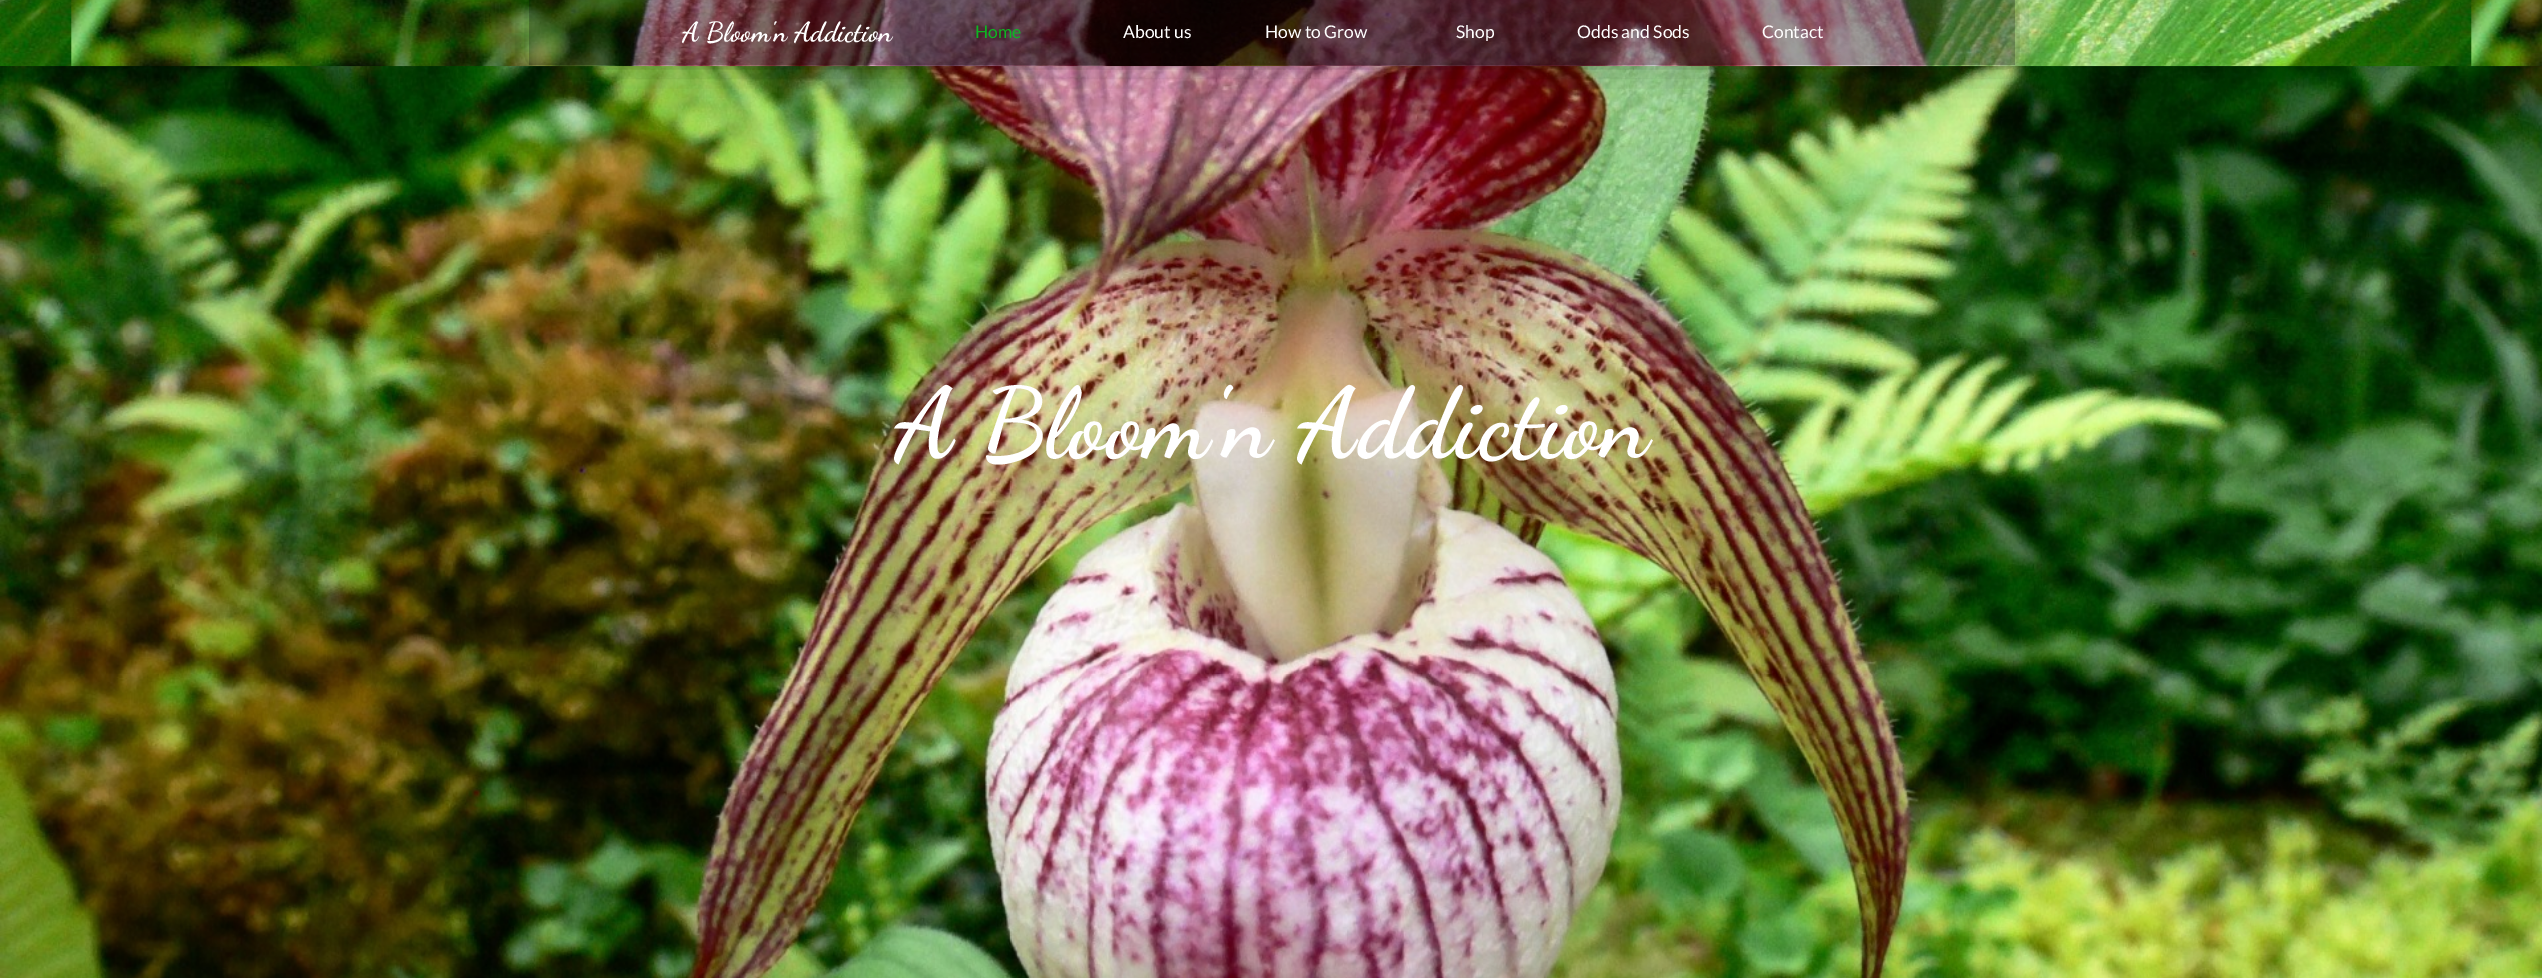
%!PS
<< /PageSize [2542 978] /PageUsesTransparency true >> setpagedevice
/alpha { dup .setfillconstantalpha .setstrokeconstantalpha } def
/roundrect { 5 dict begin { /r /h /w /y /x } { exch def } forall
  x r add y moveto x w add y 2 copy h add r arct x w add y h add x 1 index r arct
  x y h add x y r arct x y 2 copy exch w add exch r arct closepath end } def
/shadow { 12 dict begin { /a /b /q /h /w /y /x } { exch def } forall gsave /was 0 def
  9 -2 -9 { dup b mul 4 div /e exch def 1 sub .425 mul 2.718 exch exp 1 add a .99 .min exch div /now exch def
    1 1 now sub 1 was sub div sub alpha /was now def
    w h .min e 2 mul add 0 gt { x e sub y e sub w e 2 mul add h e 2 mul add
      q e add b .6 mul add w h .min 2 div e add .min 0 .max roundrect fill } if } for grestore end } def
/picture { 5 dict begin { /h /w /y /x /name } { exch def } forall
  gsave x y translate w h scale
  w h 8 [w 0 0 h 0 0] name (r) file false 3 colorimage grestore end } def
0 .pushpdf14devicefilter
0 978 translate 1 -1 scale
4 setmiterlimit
1 setgray
0 0 2542 978 rectfill
(img2.rgb) 0 66 2542 912 picture
(img1.rgb) 0 0 2542 67 picture
0.23 alpha
0 setgray
529 0 1486 65 rectfill
0.2 alpha
529 0 1486 65 rectfill
gsave
newpath 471 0 moveto 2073 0 lineto 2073 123 lineto 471 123 lineto closepath 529 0 moveto 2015 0 lineto 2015 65 lineto 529 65 lineto closepath eoclip newpath
1 alpha
529 0 1486 65 0 19 0.36 shadow
grestore
/DancingScript-Bold [27.5 0 0 -27.5 0 0] selectfont
1 alpha
1 setgray
682 41 moveto (A Bloom'n Addiction) show
/Lato-Regular [17.5 0 0 -17.5 0 0] selectfont
0.051 0.71 0.133 setrgbcolor
975 38 moveto (Home) show
1 setgray
1123 38 moveto (About us) show
1265 38 moveto (How to Grow) show
1456 38 moveto (Shop) show
1577 38 moveto (Odds and Sods) show
1762 38 moveto (Contact) show
/DancingScript-Bold [98.75 0 0 -98.75 0 0] selectfont
894 456 moveto (A Bloom'n Addiction) show
.poppdf14devicefilter showpage
